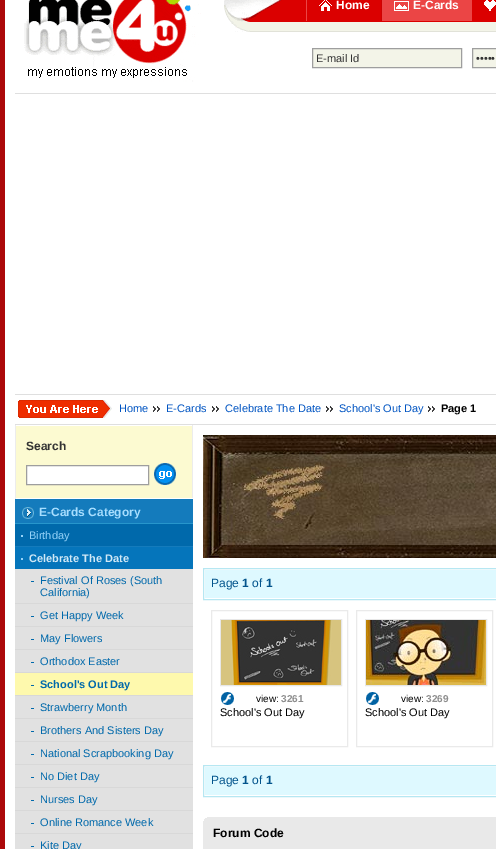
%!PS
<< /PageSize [496 849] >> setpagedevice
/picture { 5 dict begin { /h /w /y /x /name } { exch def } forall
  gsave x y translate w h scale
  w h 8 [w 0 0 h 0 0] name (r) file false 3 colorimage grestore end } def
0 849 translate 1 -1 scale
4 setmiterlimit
1 setgray
0 0 496 849 rectfill
0.675 0.035 0.039 setrgbcolor
0 0 5 849 rectfill
(img1.rgb) 24 0 177 82 picture
(img2.rgb) 224 0 272 32 picture
0.922 0.271 0.271 setrgbcolor
306 0 1 21 rectfill
(img3.rgb) 319 0 13 11 picture
/LiberationSans-Bold [12 0 0 -12 0 0] selectfont
1 setgray
336 9 moveto (Home) show
0.922 0.271 0.271 setrgbcolor
382 0 90 21 rectfill
0.808 0 0 setrgbcolor
381 0 1 21 rectfill
(img4.rgb) 394 1 15 10 picture
1 setgray
413 9 moveto (E-Cards) show
(img5.rgb) 484 0 12 11 picture
0.953 0.957 0.91 setrgbcolor
newpath 312.5 48.5 moveto 461.5 48.5 lineto 461.5 67.5 lineto 312.5 67.5 lineto closepath gsave fill grestore
0.62 setgray
stroke
/LiberationSans-Regular [11 0 0 -11 0 0] selectfont
0.2 setgray
316 62 moveto (E-mail Id) show
0.953 0.957 0.91 setrgbcolor
newpath 472.5 48.5 moveto 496.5 48.5 lineto 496.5 67.5 lineto 472.5 67.5 lineto closepath gsave fill grestore
0.62 setgray
stroke
0.2 setgray
476 62 moveto (•••••) show
0.875 setgray
15 93 481 1 rectfill
15 394 481 1 rectfill
15 424 481 1 rectfill
(img6.rgb) 18 400 94 18 picture
0 0.329 0.761 setrgbcolor
119 412 moveto (Home) show
(img7.rgb) 153 406 7 6 picture
166 412 moveto (E-Cards) show
(img7.rgb) 212 406 7 6 picture
225 412 moveto (Celebrate The Date) show
(img7.rgb) 326 406 7 6 picture
339 412 moveto (School's Out Day) show
(img7.rgb) 428 406 7 6 picture
/LiberationSans-Bold [11 0 0 -11 0 0] selectfont
0 setgray
441 412 moveto (Page 1) show
0.988 0.98 0.82 setrgbcolor
16 426 176 72 rectfill
0.925 setgray
192 425 1 74 rectfill
1 setgray
192 498 1 1 rectfill
0.925 setgray
15 425 1 74 rectfill
/LiberationSans-Bold [12 0 0 -12 0 0] selectfont
0.2 setgray
26 450 moveto (Search) show
1 setgray
newpath 26.5 465.5 moveto 148.5 465.5 lineto 148.5 484.5 lineto 26.5 484.5 lineto closepath gsave fill grestore
0.62 setgray
stroke
(img8.rgb) 154 463 22 22 picture
0.078 0.482 0.737 setrgbcolor
15 499 178 24 rectfill
0.153 0.588 0.8 setrgbcolor
15 523 178 1 rectfill
(img9.rgb) 22 507 12 12 picture
0.655 0.871 1 setrgbcolor
39 516 moveto (E-Cards Category) show
0.078 0.482 0.737 setrgbcolor
15 546 178 1 rectfill
0 0.412 0.671 setrgbcolor
15 524 178 22 rectfill
0.584 0.827 0.976 setrgbcolor
21 535 2 2 rectfill
/LiberationSans-Regular [11 0 0 -11 0 0] selectfont
29 539 moveto (Birthday) show
0.02 0.459 0.733 setrgbcolor
15 547 178 22 rectfill
0.584 0.827 0.976 setrgbcolor
21 558 2 2 rectfill
/LiberationSans-Bold [11 0 0 -11 0 0] selectfont
0.816 0.91 0.965 setrgbcolor
29 562 moveto (Celebrate The Date) show
0.847 setgray
15 603 178 1 rectfill
0.882 setgray
15 569 178 34 rectfill
0 0.412 0.671 setrgbcolor
31 581 3 1 rectfill
/LiberationSans-Regular [11 0 0 -11 0 0] selectfont
40 584 moveto (Festival Of Roses \(South) show
40 596 moveto (California\)) show
0.847 setgray
15 626 178 1 rectfill
0.882 setgray
15 604 178 22 rectfill
0 0.412 0.671 setrgbcolor
31 616 3 1 rectfill
40 619 moveto (Get Happy Week) show
0.847 setgray
15 649 178 1 rectfill
0.882 setgray
15 627 178 22 rectfill
0 0.412 0.671 setrgbcolor
31 639 3 1 rectfill
40 642 moveto (May Flowers) show
0.847 setgray
15 672 178 1 rectfill
0.882 setgray
15 650 178 22 rectfill
0 0.412 0.671 setrgbcolor
31 662 3 1 rectfill
40 665 moveto (Orthodox Easter) show
0.847 setgray
15 695 178 1 rectfill
0.996 0.976 0.678 setrgbcolor
15 673 178 22 rectfill
0 0.412 0.671 setrgbcolor
31 685 3 1 rectfill
/LiberationSans-Bold [11 0 0 -11 0 0] selectfont
40 688 moveto (School's Out Day) show
0.847 setgray
15 718 178 1 rectfill
0.882 setgray
15 696 178 22 rectfill
0 0.412 0.671 setrgbcolor
31 708 3 1 rectfill
/LiberationSans-Regular [11 0 0 -11 0 0] selectfont
40 711 moveto (Strawberry Month) show
0.847 setgray
15 741 178 1 rectfill
0.882 setgray
15 719 178 22 rectfill
0 0.412 0.671 setrgbcolor
31 731 3 1 rectfill
40 734 moveto (Brothers And Sisters Day) show
0.847 setgray
15 764 178 1 rectfill
0.882 setgray
15 742 178 22 rectfill
0 0.412 0.671 setrgbcolor
31 754 3 1 rectfill
40 757 moveto (National Scrapbooking Day) show
0.847 setgray
15 787 178 1 rectfill
0.882 setgray
15 765 178 22 rectfill
0 0.412 0.671 setrgbcolor
31 777 3 1 rectfill
40 780 moveto (No Diet Day) show
0.847 setgray
15 810 178 1 rectfill
0.882 setgray
15 788 178 22 rectfill
0 0.412 0.671 setrgbcolor
31 800 3 1 rectfill
40 803 moveto (Nurses Day) show
0.847 setgray
15 833 178 1 rectfill
0.882 setgray
15 811 178 22 rectfill
0 0.412 0.671 setrgbcolor
31 823 3 1 rectfill
40 826 moveto (Online Romance Week) show
0.882 setgray
15 834 178 15 rectfill
0 0.412 0.671 setrgbcolor
31 846 3 1 rectfill
40 849 moveto (Kite Day) show
(img10.rgb) 203 435 293 123 picture
0.714 0.906 0.949 setrgbcolor
203.5 568.5 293 31 rectstroke
0.871 0.976 1 setrgbcolor
205 570 291 28 rectfill
/LiberationSans-Regular [12 0 0 -12 0 0] selectfont
0.008 0.329 0.549 setrgbcolor
211 587 moveto (Page) show
/LiberationSans-Bold [12 0 0 -12 0 0] selectfont
242 587 moveto (1) show
/LiberationSans-Regular [12 0 0 -12 0 0] selectfont
252 587 moveto (of) show
/LiberationSans-Bold [12 0 0 -12 0 0] selectfont
266 587 moveto (1) show
0.918 setgray
211.5 610.5 136 136 rectstroke
0.906 setgray
220.5 619.5 121 66 rectstroke
(img11.rgb) 221 620 120 65 picture
(img12.rgb) 221 692 13 13 picture
/LiberationSans-Regular [10 0 0 -10 0 0] selectfont
0 setgray
256 702 moveto (view:) show
/LiberationSans-Bold [10 0 0 -10 0 0] selectfont
0.557 setgray
281 702 moveto (3261) show
/LiberationSans-Regular [11 0 0 -11 0 0] selectfont
0 setgray
220 716 moveto (School's Out Day) show
0.918 setgray
356.5 610.5 136 136 rectstroke
0.906 setgray
365.5 619.5 121 66 rectstroke
(img13.rgb) 366 620 120 65 picture
(img12.rgb) 366 692 13 13 picture
/LiberationSans-Regular [10 0 0 -10 0 0] selectfont
0 setgray
401 702 moveto (view:) show
/LiberationSans-Bold [10 0 0 -10 0 0] selectfont
0.557 setgray
426 702 moveto (3269) show
/LiberationSans-Regular [11 0 0 -11 0 0] selectfont
0 setgray
365 716 moveto (School's Out Day) show
0.714 0.906 0.949 setrgbcolor
203.5 765.5 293 31 rectstroke
0.871 0.976 1 setrgbcolor
205 767 291 28 rectfill
/LiberationSans-Regular [12 0 0 -12 0 0] selectfont
0.008 0.329 0.549 setrgbcolor
211 784 moveto (Page) show
/LiberationSans-Bold [12 0 0 -12 0 0] selectfont
242 784 moveto (1) show
/LiberationSans-Regular [12 0 0 -12 0 0] selectfont
252 784 moveto (of) show
/LiberationSans-Bold [12 0 0 -12 0 0] selectfont
266 784 moveto (1) show
0.914 setgray
207 817 289 1 rectfill
205 818 291 1 rectfill
204 819 292 2 rectfill
203 821 293 28 rectfill
0 setgray
213 837 moveto (Forum Code) show
showpage
